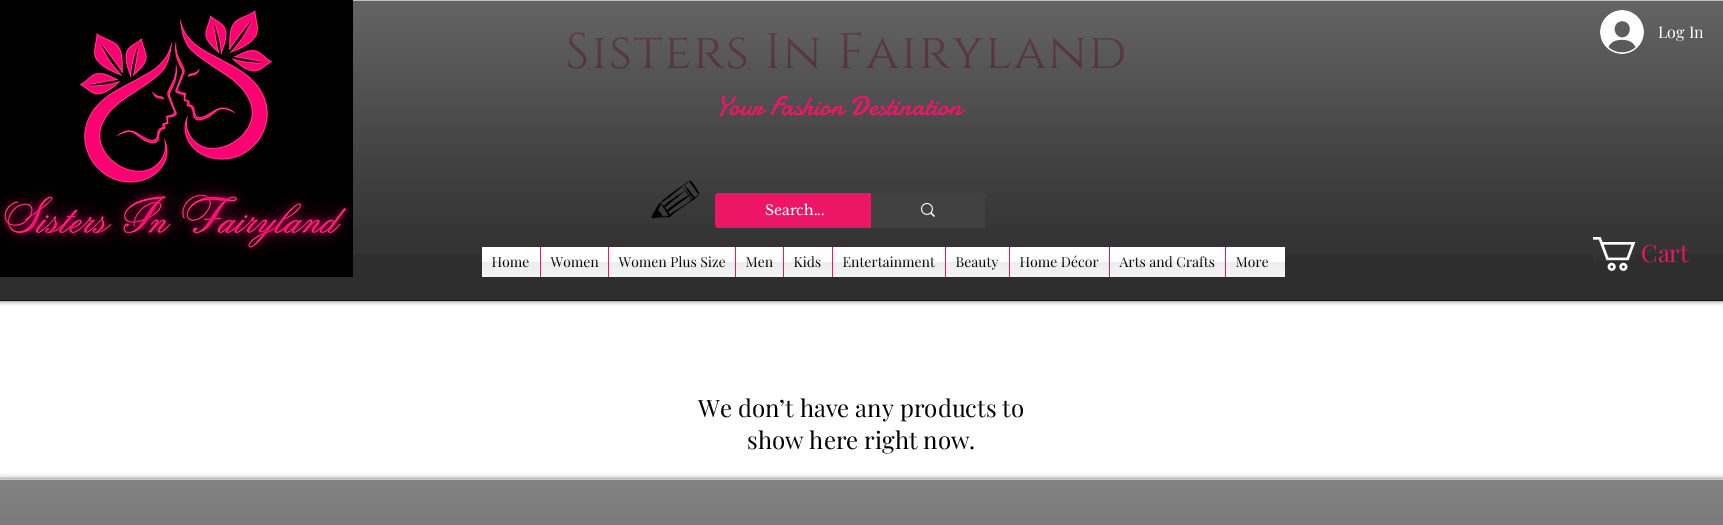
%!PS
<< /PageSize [1723 525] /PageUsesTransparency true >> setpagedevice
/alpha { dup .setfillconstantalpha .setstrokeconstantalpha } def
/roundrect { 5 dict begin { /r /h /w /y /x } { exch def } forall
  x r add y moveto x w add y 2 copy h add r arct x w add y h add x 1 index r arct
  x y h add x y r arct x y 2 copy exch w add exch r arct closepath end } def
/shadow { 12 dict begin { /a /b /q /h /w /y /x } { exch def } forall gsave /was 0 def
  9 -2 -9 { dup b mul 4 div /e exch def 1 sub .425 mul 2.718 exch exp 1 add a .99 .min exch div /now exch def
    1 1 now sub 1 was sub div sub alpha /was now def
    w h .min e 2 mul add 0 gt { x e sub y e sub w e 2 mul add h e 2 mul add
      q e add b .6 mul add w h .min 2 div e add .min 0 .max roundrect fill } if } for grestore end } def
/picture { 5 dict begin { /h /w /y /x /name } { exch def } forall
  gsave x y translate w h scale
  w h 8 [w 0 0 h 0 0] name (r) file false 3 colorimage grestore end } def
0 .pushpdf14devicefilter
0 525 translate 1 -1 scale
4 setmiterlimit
1 setgray
0 0 1723 525 rectfill
0.18 setgray
0 1 1723 299 rectfill
gsave
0 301 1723 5 rectclip
0 setgray
0 0 1723 301 0 2.5 0.6 shadow
grestore
/Cinzel-Regular [50 0 0 -50 0 0] selectfont
0.169 0.016 0.071 setrgbcolor
566 68 moveto 1.5 0 (Sisters In Fairyland) ashow
(img1.rgb) 353 1 1370 253 picture
0.071 setgray
0 300 1723 1 rectfill
0.757 setgray
353 0 1370 1 rectfill
(img2.rgb) 0 0 353 277 picture
(img3.rgb) 651 180 49 39 picture
/Damion-Regular [27 0 0 -27 0 0] selectfont
0.929 0.082 0.4 setrgbcolor
716 115 moveto (Your Fashion Destination) show
715 193 270 35 4 roundrect fill
/LibreBaskerville-Regular [14 0 0 -14 0 0] selectfont
1 setgray
765 215 moveto (Search...) show
0.255 setgray
newpath 871 193 moveto 981 193 lineto 983 193 985 195 985 197 curveto 985 224 lineto 985 226 983 228 981 228 curveto 871 228 lineto closepath fill
(img4.rgb) 921 203 14 14 picture
(img5.rgb) 1600 10 44 44 picture
/PlayfairDisplay-Regular [16 0 0 -16 0 0] selectfont
1 setgray
1658 38 moveto (Log In) show
(img6.rgb) 1593 237 43 34 picture
/PlayfairDisplay-Regular [24 0 0 -24 0 0] selectfont
0.929 0.082 0.4 setrgbcolor
1641 262 moveto (Cart) show
1 setgray
1226 247 59 30 rectfill
(img7.rgb) 1279 262 6 15 picture
482 247 58 30 rectfill
/PlayfairDisplay-Regular [14 0 0 -14 0 0] selectfont
0 setgray
492 267 moveto (Home) show
(img8.rgb) 482 257 58 20 picture
1 setgray
541 247 67 30 rectfill
0.929 0.082 0.4 setrgbcolor
540 247 1 30 rectfill
0 setgray
551 267 moveto (Women) show
(img9.rgb) 541 257 67 20 picture
1 setgray
609 247 126 30 rectfill
0.929 0.082 0.4 setrgbcolor
608 247 1 30 rectfill
0 setgray
619 267 moveto (Women Plus Size) show
(img10.rgb) 609 256 126 21 picture
1 setgray
736 247 47 30 rectfill
0.929 0.082 0.4 setrgbcolor
735 247 1 30 rectfill
0 setgray
746 267 moveto (Men) show
(img11.rgb) 736 257 47 20 picture
1 setgray
784 247 48 30 rectfill
0.929 0.082 0.4 setrgbcolor
783 247 1 30 rectfill
0 setgray
794 267 moveto (Kids) show
(img12.rgb) 784 256 48 21 picture
1 setgray
833 247 112 30 rectfill
0.929 0.082 0.4 setrgbcolor
832 247 1 30 rectfill
0 setgray
843 267 moveto (Entertainment) show
(img13.rgb) 833 256 112 21 picture
1 setgray
946 247 63 30 rectfill
0.929 0.082 0.4 setrgbcolor
945 247 1 30 rectfill
0 setgray
956 267 moveto (Beauty) show
(img14.rgb) 946 257 63 20 picture
1 setgray
1010 247 99 30 rectfill
0.929 0.082 0.4 setrgbcolor
1009 247 1 30 rectfill
0 setgray
1020 267 moveto (Home Décor) show
(img15.rgb) 1010 255 99 22 picture
1 setgray
1110 247 115 30 rectfill
0.929 0.082 0.4 setrgbcolor
1109 247 1 30 rectfill
0 setgray
1120 267 moveto (Arts and Crafts) show
(img16.rgb) 1110 256 115 21 picture
0.929 0.082 0.4 setrgbcolor
1225 247 1 30 rectfill
0 setgray
1236 267 moveto (More) show
(img17.rgb) 1226 257 53 20 picture
/PlayfairDisplay-Regular [24 0 0 -24 0 0] selectfont
698 417 moveto (We don’t have any products to) show
747 449 moveto (show here right now.) show
0 479 1723 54 0 2.5 0.6 shadow
0.341 setgray
0 480 1723 45 rectfill
(img18.rgb) 0 480 1723 45 picture
0.804 setgray
0 479 1723 1 rectfill
.poppdf14devicefilter showpage
